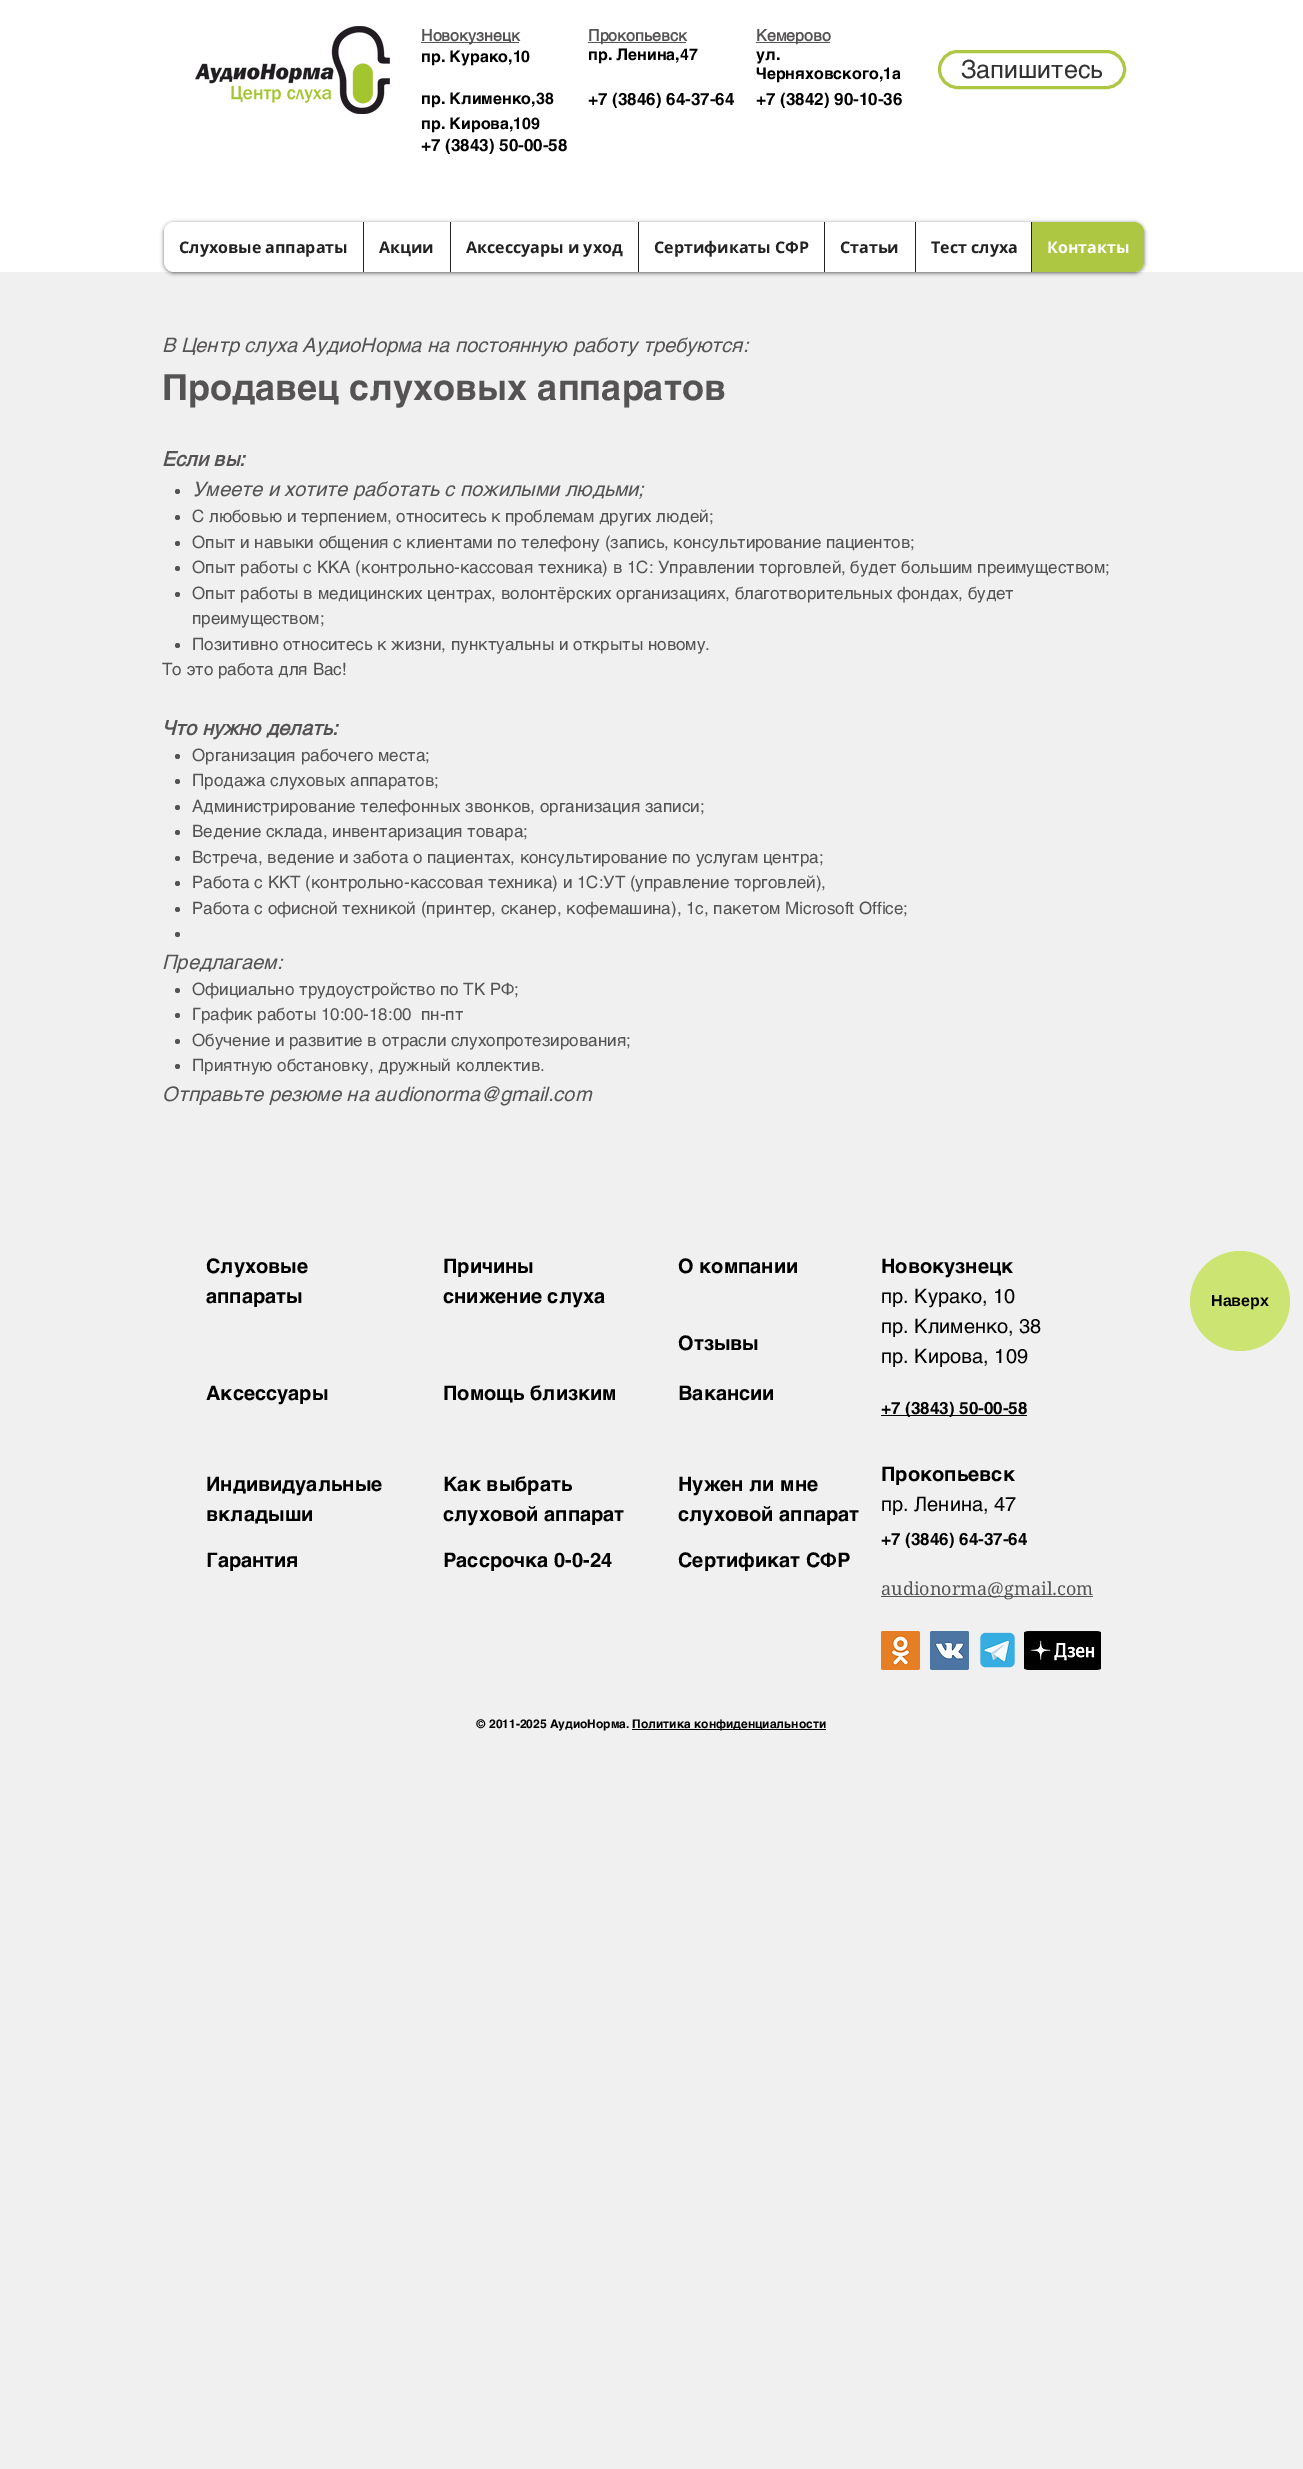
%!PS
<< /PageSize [1303 2469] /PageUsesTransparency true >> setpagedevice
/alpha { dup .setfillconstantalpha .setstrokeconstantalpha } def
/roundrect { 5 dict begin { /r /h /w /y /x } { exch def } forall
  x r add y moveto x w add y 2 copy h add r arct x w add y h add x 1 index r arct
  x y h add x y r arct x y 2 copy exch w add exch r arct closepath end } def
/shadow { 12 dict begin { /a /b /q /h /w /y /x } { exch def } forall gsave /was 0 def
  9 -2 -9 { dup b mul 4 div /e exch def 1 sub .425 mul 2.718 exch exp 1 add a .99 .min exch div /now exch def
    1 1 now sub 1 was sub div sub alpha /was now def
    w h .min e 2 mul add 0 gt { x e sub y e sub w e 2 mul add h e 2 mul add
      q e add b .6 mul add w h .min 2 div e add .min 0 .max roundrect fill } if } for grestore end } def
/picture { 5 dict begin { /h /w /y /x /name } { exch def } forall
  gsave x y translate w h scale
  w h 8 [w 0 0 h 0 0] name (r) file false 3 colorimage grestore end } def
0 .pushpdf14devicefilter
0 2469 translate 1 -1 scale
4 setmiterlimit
0.941 setgray
0 0 1303 2469 rectfill
1 setgray
0 0 1303 272 rectfill
(img1.rgb) 195 26 195 88 picture
0.333 0.325 0.325 setrgbcolor
421 42 98 1 rectfill
/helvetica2-Bold [16 0 0 -16 0 0] selectfont
421 41 moveto (Новокузнецк) show
588 42 98 1 rectfill
588 41 moveto (Прокопьевск) show
756 42 74 1 rectfill
756 41 moveto (Кемерово) show
/helvetica-Bold [16 0 0 -16 0 0] selectfont
0 setgray
421 62 moveto (пр. Курако,10) show
588 60 moveto (пр. Ленина,47) show
756 60 moveto (ул.) show
756 79 moveto (Черняховского,1а) show
0.678 0.78 0.263 setrgbcolor
3 setlinewidth
939.5 51.5 185 36 18 roundrect stroke
/helvetica-Regular [25 0 0 -25 0 0] selectfont
0.196 setgray
961 78 moveto (Запишитесь) show
/helvetica-Bold [16 0 0 -16 0 0] selectfont
0 setgray
421 104 moveto (пр. Клименко,38) show
/helvetica-Bold [17 0 0 -17 0 0] selectfont
588 105 moveto (+7 \(3846\) 64-37-64) show
756 105 moveto (+7 \(3842\) 90-10-36) show
/helvetica-Bold [16 0 0 -16 0 0] selectfont
421 129 moveto (пр. Кирова,109) show
/helvetica-Bold [17 0 0 -17 0 0] selectfont
421 151 moveto (+7 \(3843\) 50-00-58) show
164 223 980 50 10 2 0.6 shadow
1 setgray
164 222 980 50 10 roundrect fill
/OpenSans-Bold [16 0 0 -16 0 0] selectfont
0.133 setgray
179 253 moveto (Слуховые аппараты) show
363 222 1 50 rectfill
379 253 moveto (Акции) show
450 222 1 50 rectfill
466 253 moveto (Аксессуары и уход) show
638 222 1 50 rectfill
654 253 moveto (Сертификаты СФР) show
824 222 1 50 rectfill
840 253 moveto (Статьи) show
915 222 1 50 rectfill
931 253 moveto (Тест слуха) show
0.678 0.78 0.263 setrgbcolor
newpath 1031 222 moveto 1134 222 lineto 1139.5 222 1144 226.5 1144 232 curveto 1144 262 lineto 1144 267.5 1139.5 272 1134 272 curveto 1031 272 lineto closepath fill
0.133 setgray
1031 222 1 50 rectfill
1 setgray
1047 253 moveto (Контакты) show
/helvetica-Italic [20 0 0 -20 0 0] selectfont
0.333 0.325 0.325 setrgbcolor
162 352 moveto (В Центр слуха АудиоНорма на постоянную работу требуются:) show
/helvetica-Bold [36 0 0 -36 0 0] selectfont
162 400 moveto (Продавец слуховых аппаратов) show
/helvetica-BoldItalic [20 0 0 -20 0 0] selectfont
162 466 moveto (Если вы:) show
newpath 177.5 491.5 2.5 0 360 arc closepath fill
/helvetica-Italic [20 0 0 -20 0 0] selectfont
192 496 moveto (Умеете и хотите работать с пожилыми людьми;) show
newpath 177.5 517.5 2.5 0 360 arc closepath fill
/helvetica-Regular [17 0 0 -17 0 0] selectfont
192 522 moveto (С любовью и терпением, относитесь к проблемам других людей;) show
newpath 177.5 543.5 2.5 0 360 arc closepath fill
192 548 moveto (Опыт и навыки общения с клиентами по телефону \(запись, консультирование пациентов;) show
newpath 177.5 568.5 2.5 0 360 arc closepath fill
192 573 moveto (Опыт работы с ККА \(контрольно-кассовая техника\) в 1С: Управлении торговлей, будет большим преимуществом;) show
newpath 177.5 594.5 2.5 0 360 arc closepath fill
192 599 moveto (Опыт работы в медицинских центрах, волонтёрских организациях, благотворительных фондах, будет) show
192 624 moveto (преимуществом;) show
newpath 177.5 645.5 2.5 0 360 arc closepath fill
192 650 moveto (Позитивно относитесь к жизни, пунктуальны и открыты новому.) show
162 675 moveto (То это работа для Вас!) show
/helvetica-BoldItalic [20 0 0 -20 0 0] selectfont
162 735 moveto (Что нужно делать:) show
newpath 177.5 756.5 2.5 0 360 arc closepath fill
/helvetica-Regular [17 0 0 -17 0 0] selectfont
192 761 moveto (Организация рабочего места;) show
newpath 177.5 781.5 2.5 0 360 arc closepath fill
192 786 moveto (Продажа слуховых аппаратов;) show
newpath 177.5 807.5 2.5 0 360 arc closepath fill
192 812 moveto (Администрирование телефонных звонков, организация записи;) show
newpath 177.5 832.5 2.5 0 360 arc closepath fill
192 837 moveto (Ведение склада, инвентаризация товара;) show
newpath 177.5 858.5 2.5 0 360 arc closepath fill
192 863 moveto (Встреча, ведение и забота о пациентах, консультирование по услугам центра;) show
newpath 177.5 883.5 2.5 0 360 arc closepath fill
192 888 moveto (Работа с ККТ \(контрольно-кассовая техника\) и 1С:УТ \(управление торговлей\),) show
newpath 177.5 909.5 2.5 0 360 arc closepath fill
192 914 moveto (Работа с офисной техникой \(принтер, сканер, кофемашина\), 1с, пакетом Microsoft Office;) show
newpath 177.5 934.5 2.5 0 360 arc closepath fill
/helvetica-Italic [20 0 0 -20 0 0] selectfont
162 969 moveto (Предлагаем:) show
newpath 177.5 990.5 2.5 0 360 arc closepath fill
/helvetica-Regular [17 0 0 -17 0 0] selectfont
192 995 moveto (Официально трудоустройство по ТК РФ;) show
newpath 177.5 1015.5 2.5 0 360 arc closepath fill
192 1020 moveto (График работы 10:00-18:00  пн-пт) show
newpath 177.5 1041.5 2.5 0 360 arc closepath fill
192 1046 moveto (Обучение и развитие в отрасли слухопротезирования;) show
newpath 177.5 1066.5 2.5 0 360 arc closepath fill
192 1071 moveto (Приятную обстановку, дружный коллектив.) show
/helvetica-Italic [20 0 0 -20 0 0] selectfont
162 1101 moveto (Отправьте резюме на audionorma@gmail.com) show
/helvetica-Bold [20 0 0 -20 0 0] selectfont
0 setgray
206 1273 moveto (Слуховые) show
206 1303 moveto (аппараты) show
443 1273 moveto (Причины) show
443 1303 moveto (снижение слуха) show
678 1273 moveto (О компании) show
881 1273 moveto (Новокузнецк) show
/helvetica-Regular [20 0 0 -20 0 0] selectfont
881 1303 moveto (пр. Курако, 10) show
881 1333 moveto (пр. Клименко, 38) show
881 1363 moveto (пр. Кирова, 109) show
/helvetica-Bold [20 0 0 -20 0 0] selectfont
678 1350 moveto (Отзывы) show
206 1400 moveto (Аксессуары) show
443 1400 moveto (Помощь близким) show
678 1400 moveto (Вакансии) show
881 1415 146 1 rectfill
/helvetica-Bold [17 0 0 -17 0 0] selectfont
881 1414 moveto (+7 \(3843\) 50-00-58) show
/helvetica-Bold [20 0 0 -20 0 0] selectfont
206 1491 moveto (Индивидуальные) show
206 1521 moveto (вкладыши) show
443 1491 moveto (Как выбрать) show
443 1521 moveto (слуховой аппарат) show
678 1491 moveto (Нужен ли мне) show
678 1521 moveto (слуховой аппарат) show
881 1481 moveto (Прокопьевск) show
/helvetica-Regular [20 0 0 -20 0 0] selectfont
881 1511 moveto (пр. Ленина, 47) show
/helvetica-Bold [17 0 0 -17 0 0] selectfont
881 1545 moveto (+7 \(3846\) 64-37-64) show
/helvetica-Bold [20 0 0 -20 0 0] selectfont
206 1567 moveto (Гарантия) show
443 1567 moveto (Рассрочка 0-0-24) show
678 1567 moveto (Сертификат СФР) show
0.333 0.325 0.325 setrgbcolor
881 1596 212 1 rectfill
/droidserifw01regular-Regular [18 0 0 -18 0 0] selectfont
881 1595 moveto (audionorma@gmail.com) show
(img2.rgb) 881 1631 39 39 picture
(img3.rgb) 930 1631 39 39 picture
(img4.rgb) 980 1632 35 36 picture
(img5.rgb) 1024 1631 77 39 picture
/helvetica-Bold [12 0 0 -12 0 0] selectfont
0 setgray
476 1728 moveto (© 2011-2025 АудиоНорма.) show
632 1729 194 1 rectfill
632 1728 moveto (Политика конфиденциальности) show
0.8 0.894 0.447 setrgbcolor
newpath 1240 1301 50 0 360 arc closepath fill
/LiberationSans-Bold [16 0 0 -16 0 0] selectfont
0 setgray
1211 1306 moveto (Наверх) show
.poppdf14devicefilter showpage
